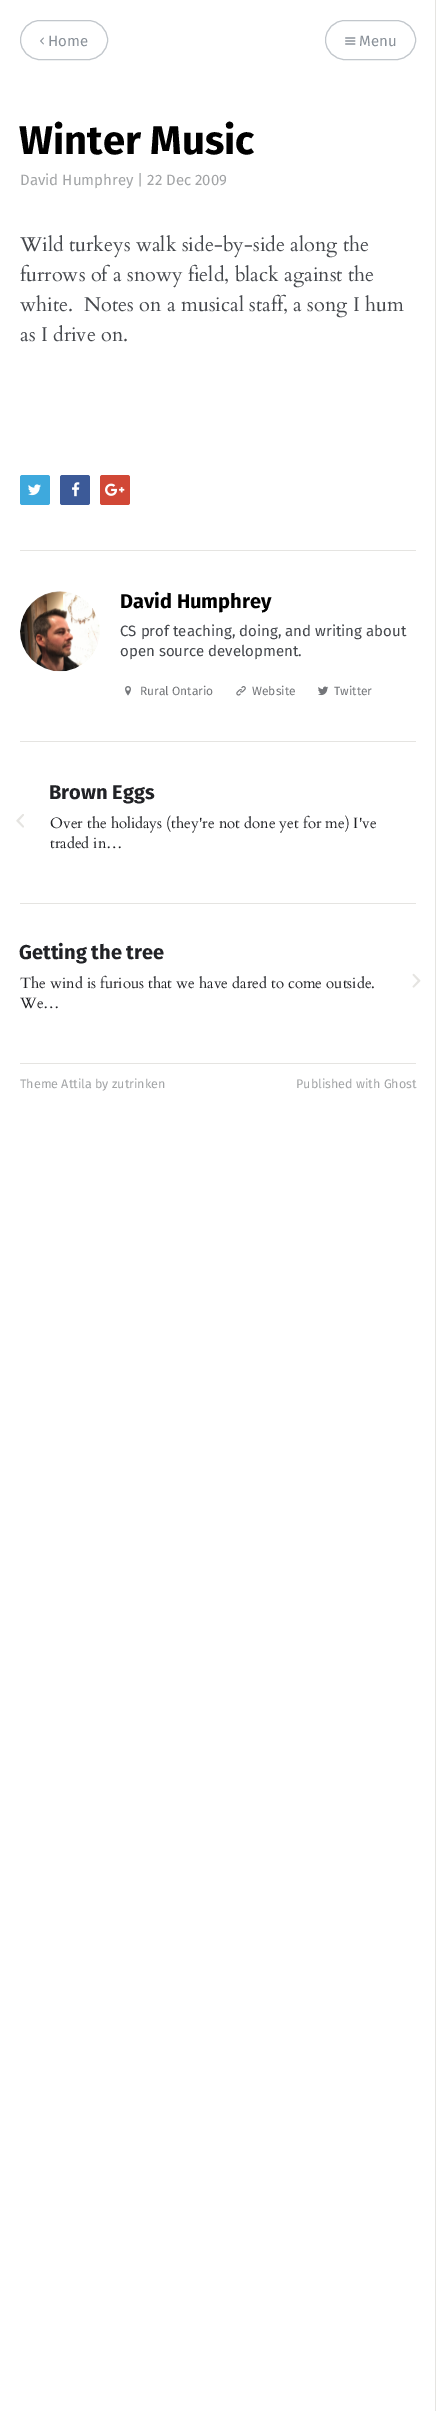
%!PS
<< /PageSize [436 2411] >> setpagedevice
/roundrect { 5 dict begin { /r /h /w /y /x } { exch def } forall
  x r add y moveto x w add y 2 copy h add r arct x w add y h add x 1 index r arct
  x y h add x y r arct x y 2 copy exch w add exch r arct closepath end } def
/picture { 5 dict begin { /h /w /y /x /name } { exch def } forall
  gsave x y translate w h scale
  w h 8 [w 0 0 h 0 0] name (r) file false 3 colorimage grestore end } def
0 2411 translate 1 -1 scale
4 setmiterlimit
1 setgray
0 0 436 2411 rectfill
0.761 0.78 0.8 setrgbcolor
20.5 20.5 87 39 19.5 roundrect stroke
(img1.rgb) 40 37 4 8 picture
/FiraSans-Regular [15 0 0 -15 0 0] selectfont
0.541 0.569 0.6 setrgbcolor
48 46 moveto (Home) show
0.761 0.78 0.8 setrgbcolor
325.5 20.5 90 39 19.5 roundrect stroke
(img2.rgb) 345 37 11 8 picture
0.541 0.569 0.6 setrgbcolor
359 46 moveto (Menu) show
/FiraSans-Bold [40 0 0 -40 0 0] selectfont
0 setgray
19 154 moveto (Winter Music) show
/FiraSans-Regular [15 0 0 -15 0 0] selectfont
0.635 0.643 0.651 setrgbcolor
20 185 moveto (David Humphrey | 22 Dec 2009) show
/Cardo-Regular [20 0 0 -20 0 0] selectfont
0.271 0.282 0.302 setrgbcolor
20 251 moveto (Wild turkeys walk side-by-side along the) show
20 281 moveto (furrows of a snowy field, black against the) show
20 311 moveto (white.  Notes on a musical staff, a song I hum) show
20 341 moveto (as I drive on.) show
0.243 0.663 0.867 setrgbcolor
20 475 30 30 2.5 roundrect fill
(img3.rgb) 28 484 13 12 picture
0.235 0.353 0.596 setrgbcolor
60 475 30 30 2.5 roundrect fill
(img4.rgb) 72 482 8 15 picture
0.82 0.282 0.212 setrgbcolor
100 475 30 30 2.5 roundrect fill
(img5.rgb) 105 483 20 13 picture
0.898 0.894 0.882 setrgbcolor
20 550 396 1 rectfill
20 741 396 1 rectfill
(img6.rgb) 20 591 80 81 picture
/FiraSans-Bold [20 0 0 -20 0 0] selectfont
0 setgray
120 608 moveto (David Humphrey) show
/FiraSans-Regular [15 0 0 -15 0 0] selectfont
0.271 0.282 0.302 setrgbcolor
120 636 moveto (CS prof teaching, doing, and writing about) show
120 656 moveto (open source development.) show
(img7.rgb) 125 686 6 10 picture
/FiraSans-Regular [12 0 0 -12 0 0] selectfont
0.455 0.463 0.478 setrgbcolor
140 695 moveto (Rural Ontario) show
(img8.rgb) 236 686 10 10 picture
252 695 moveto (Website) show
(img9.rgb) 318 686 11 10 picture
334 695 moveto (Twitter) show
0.898 0.894 0.882 setrgbcolor
20 1063 396 1 rectfill
/FiraSans-Bold [20 0 0 -20 0 0] selectfont
0.129 0.133 0.149 setrgbcolor
49 799 moveto (Brown Eggs) show
(img10.rgb) 16 814 8 14 picture
/Cardo-Regular [15 0 0 -15 0 0] selectfont
50 828 moveto (Over the holidays \(they're not done yet for me\) I've) show
50 848 moveto (traded in…) show
0.898 0.894 0.882 setrgbcolor
20 903 396 1 rectfill
/FiraSans-Bold [20 0 0 -20 0 0] selectfont
0.129 0.133 0.149 setrgbcolor
19 959 moveto (Getting the tree) show
/Cardo-Regular [15 0 0 -15 0 0] selectfont
20 988 moveto (The wind is furious that we have dared to come outside.) show
20 1008 moveto (We…) show
(img11.rgb) 412 973 9 15 picture
/FiraSans-Regular [12.5 0 0 -12.5 0 0] selectfont
0.635 0.643 0.651 setrgbcolor
20 1088 moveto (Theme Attila by zutrinken) show
296 1088 moveto (Published with Ghost) show
0.898 0.894 0.882 setrgbcolor
435 0 1 2411 rectfill
showpage
